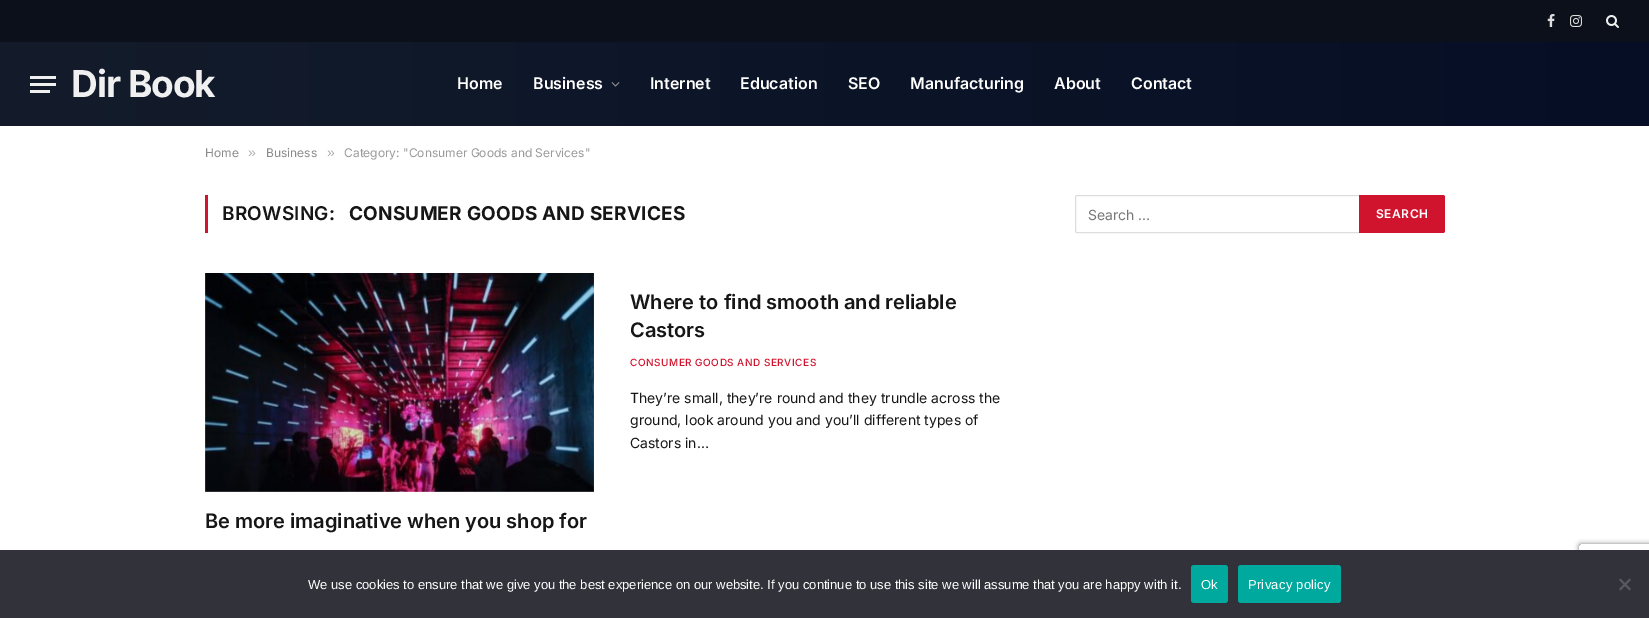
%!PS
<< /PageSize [1649 618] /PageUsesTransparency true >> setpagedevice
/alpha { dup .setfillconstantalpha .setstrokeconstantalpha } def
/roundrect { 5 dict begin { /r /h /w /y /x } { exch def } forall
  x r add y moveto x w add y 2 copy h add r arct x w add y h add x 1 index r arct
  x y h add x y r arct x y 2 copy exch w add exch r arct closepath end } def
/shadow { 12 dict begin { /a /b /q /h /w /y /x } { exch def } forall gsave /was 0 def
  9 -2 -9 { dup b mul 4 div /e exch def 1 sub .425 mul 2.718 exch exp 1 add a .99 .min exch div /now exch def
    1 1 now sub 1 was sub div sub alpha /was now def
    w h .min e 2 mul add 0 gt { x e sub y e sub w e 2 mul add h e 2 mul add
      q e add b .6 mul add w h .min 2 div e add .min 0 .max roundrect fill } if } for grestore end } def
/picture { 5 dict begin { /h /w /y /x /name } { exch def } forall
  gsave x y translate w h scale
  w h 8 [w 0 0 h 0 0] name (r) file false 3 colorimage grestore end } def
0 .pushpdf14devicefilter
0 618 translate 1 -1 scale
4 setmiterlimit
1 setgray
0 0 1649 618 rectfill
0.043 0.063 0.106 setrgbcolor
0 0 1649 42 rectfill
(img1.rgb) 1547 14 8 13 picture
(img2.rgb) 1570 15 12 12 picture
(img3.rgb) 1606 15 13 13 picture
gsave newpath 0 42 moveto 1649 42 lineto 1649 126 lineto 0 126 lineto closepath clip newpath
<< /ShadingType 2 /ColorSpace /DeviceRGB /Coords [1649 84 0 84] /Extend [true true] /Function << /FunctionType 2 /Domain [0 1] /C0 [0.02 0.055 0.145] /C1 [0.078 0.11 0.169] /N 1 >> >> shfill grestore
0.941 setgray
30 90 20 3 rectfill
30 76 26 3 rectfill
30 83 26 3 rectfill
/Inter-Bold [37 0 0 -37 0 0] selectfont
71 97 moveto -1 0 (Dir Book) ashow
/Inter-SemiBold [16 0 0 -16 0 0] selectfont
1 setgray
457 89 moveto (Home) show
533 89 moveto (Business) show
(img4.rgb) 611 82 9 5 picture
650 89 moveto (Internet) show
740 89 moveto (Education) show
848 89 moveto (SEO) show
910 89 moveto (Manufacturing) show
1054 89 moveto (About) show
1131 89 moveto (Contact) show
/Inter-Regular [12 0 0 -12 0 0] selectfont
0.541 setgray
205 157 moveto (Home) show
/LiberationSans-Regular [14 0 0 -14 0 0] selectfont
0.678 setgray
248 157 moveto (») show
/Inter-Regular [12 0 0 -12 0 0] selectfont
0.541 setgray
266 157 moveto (Business) show
/LiberationSans-Regular [14 0 0 -14 0 0] selectfont
0.678 setgray
327 157 moveto (») show
/Inter-Regular [12 0 0 -12 0 0] selectfont
0.6 setgray
344 157 moveto (Category: "Consumer Goods and Services") show
0.82 0.078 0.18 setrgbcolor
205 195 3 38 rectfill
/Inter-SemiBold [19 0 0 -19 0 0] selectfont
0.086 setgray
222 220 moveto 0.2 0 (BROWSING:) ashow
/Inter-Bold [19 0 0 -19 0 0] selectfont
349 220 moveto 0.2 0 (CONSUMER GOODS AND SERVICES) ashow
/Inter-SemiBold [20 0 0 -20 0 0] selectfont
630 309 moveto (Where to find smooth and reliable) show
630 337 moveto (Castors) show
/Inter-Medium [10 0 0 -10 0 0] selectfont
0.82 0.078 0.18 setrgbcolor
630 366 moveto 0.5 0 (CONSUMER GOODS AND SERVICES) ashow
/Inter-Regular [14 0 0 -14 0 0] selectfont
0.086 setgray
630 403 moveto (They’re small, they’re round and they trundle across the) show
630 425 moveto (ground, look around you and you’ll different types of) show
630 448 moveto (Castors in…) show
(img5.rgb) 205 273 389 219 picture
/Inter-SemiBold [20 0 0 -20 0 0] selectfont
205 528 moveto (Be more imaginative when you shop for) show
0.867 setgray
1075.5 195.5 285 37 1.5 roundrect stroke
/Inter-Regular [14 0 0 -14 0 0] selectfont
0.467 setgray
1088 220 moveto (Search …) show
0.82 0.078 0.18 setrgbcolor
newpath 1359 195 moveto 1443 195 lineto 1444 195 1445 196 1445 197 curveto 1445 231 lineto 1445 232 1444 233 1443 233 curveto 1359 233 lineto closepath fill
/Inter-SemiBold [12 0 0 -12 0 0] selectfont
1 setgray
1376 218 moveto 0.5 0 (SEARCH) ashow
gsave
newpath 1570 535 moveto 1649 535 lineto 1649 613 lineto 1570 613 lineto closepath 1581 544 moveto 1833 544 lineto 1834 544 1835 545 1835 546 curveto 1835 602 lineto 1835 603 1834 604 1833 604 curveto 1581 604 lineto 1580 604 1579 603 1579 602 curveto 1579 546 lineto 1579 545 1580 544 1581 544 curveto closepath eoclip newpath
0.502 setgray
1579 544 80 60 2 2.5 1 shadow
grestore
0.196 0.196 0.227 setrgbcolor
0 550 1649 68 rectfill
/LiberationSans-Regular [13 0 0 -13 0 0] selectfont
1 setgray
308 589 moveto (We use cookies to ensure that we give you the best experience on our website. If you continue to use this site we will assume that you are happy with it.) show
0 0.663 0.616 setrgbcolor
1191 565 37 38 3 roundrect fill
1 setgray
1201 589 moveto 0.25 0 (Ok) ashow
0 0.663 0.616 setrgbcolor
1238 565 103 38 3 roundrect fill
1 setgray
1248 589 moveto 0.25 0 (Privacy policy) ashow
0.349 0.349 0.365 setrgbcolor
newpath 1629.5 578.5 moveto 1631 580 lineto 1620.5 590.5 lineto 1619 589 lineto closepath fill
newpath 1619 580 moveto 1620.5 578.5 lineto 1631 589 lineto 1629.5 590.5 lineto closepath fill
.poppdf14devicefilter showpage
